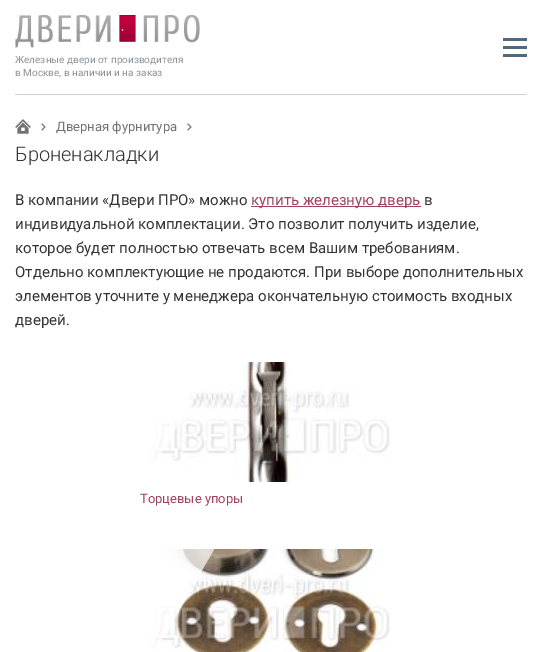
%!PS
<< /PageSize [542 652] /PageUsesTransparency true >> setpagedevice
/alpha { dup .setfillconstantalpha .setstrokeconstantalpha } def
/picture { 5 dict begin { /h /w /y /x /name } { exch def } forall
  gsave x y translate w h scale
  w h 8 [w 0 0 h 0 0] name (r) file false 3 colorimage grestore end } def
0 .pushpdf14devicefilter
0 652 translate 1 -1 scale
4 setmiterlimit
1 setgray
0 0 542 652 rectfill
0.804 0.824 0.843 setrgbcolor
15 94 512 1 rectfill
0.325 0.408 0.486 setrgbcolor
503 38 24 3 rectfill
503 46 24 3 rectfill
503 54 24 3 rectfill
(img1.rgb) 15 15 185 33 picture
/Roboto-Regular [10 0 0 -10 0 0] selectfont
0.549 0.573 0.596 setrgbcolor
15 63 moveto (Железные двери от производителя) show
15 76 moveto (в Москве, в наличии и на заказ) show
(img2.rgb) 15 119 16 15 picture
(img3.rgb) 41 123 5 8 picture
/Roboto-Regular [13 0 0 -13 0 0] selectfont
0.447 setgray
56 131 moveto (Дверная фурнитура) show
(img3.rgb) 187 123 5 8 picture
/Roboto-Light [20 0 0 -20 0 0] selectfont
0.2 setgray
15 161 moveto (Броненакладки) show
/Roboto-Regular [15 0 0 -15 0 0] selectfont
15 205 moveto (В компании «Двери ПРО» можно) show
0.627 0.255 0.365 setrgbcolor
251 206 170 1 rectfill
251 205 moveto (купить железную дверь) show
0.2 setgray
424 205 moveto (в) show
15 229 moveto (индивидуальной комплектации. Это позволит получить изделие,) show
15 253 moveto (которое будет полностью отвечать всем Вашим требованиям.) show
15 277 moveto (Отдельно комплектующие не продаются. При выборе дополнительных) show
15 301 moveto (элементов уточните у менеджера окончательную стоимость входных) show
15 325 moveto (дверей.) show
(img4.rgb) 148 362 242 120 picture
gsave
140 362 262 127 rectclip
0.69 alpha
1 setgray
newpath 164 319 moveto 220 352 lineto 141 489 lineto 85 456 lineto closepath fill
grestore
/Roboto-Regular [13 0 0 -13 0 0] selectfont
0.627 0.255 0.365 setrgbcolor
140 503 moveto (Торцевые упоры) show
(img5.rgb) 148 549 242 103 picture
gsave
140 549 262 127 rectclip
0.69 alpha
1 setgray
newpath 164 506 moveto 220 539 lineto 141 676 lineto 85 643 lineto closepath fill
grestore
.poppdf14devicefilter showpage
